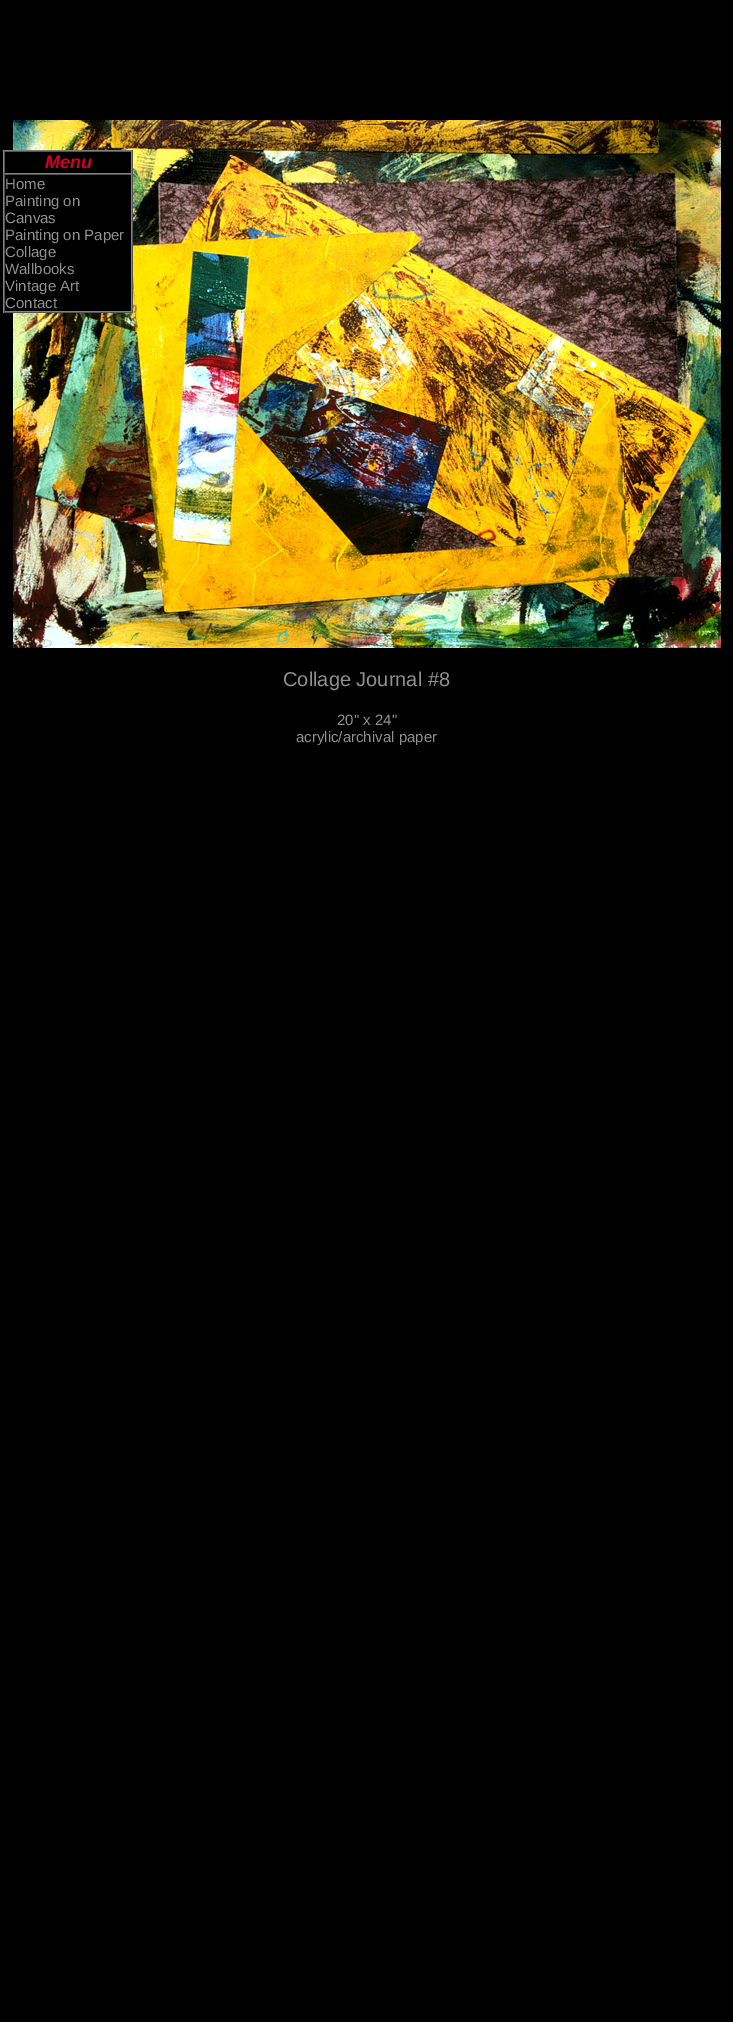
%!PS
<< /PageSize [733 2022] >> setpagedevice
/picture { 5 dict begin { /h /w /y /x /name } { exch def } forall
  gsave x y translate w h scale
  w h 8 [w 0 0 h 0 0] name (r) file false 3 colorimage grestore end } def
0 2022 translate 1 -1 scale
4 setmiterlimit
0 setgray
0 0 733 2022 rectfill
(img1.rgb) 13 120 708 528 picture
0.502 setgray
3 150 130 1 rectfill
0.333 setgray
132 150 1 163 rectfill
3 312 130 1 rectfill
0.502 setgray
3 150 1 163 rectfill
0 setgray
13 152 118 21 rectfill
0.333 setgray
4 151 128 1 rectfill
0.502 setgray
131 151 1 23 rectfill
4 173 128 1 rectfill
0.333 setgray
4 151 1 23 rectfill
/LiberationSans-BoldItalic [18 0 0 -18 0 0] selectfont
0.812 0 0.129 setrgbcolor
45 168 moveto (Menu) show
0 setgray
13 175 118 136 rectfill
0.333 setgray
4 174 128 1 rectfill
0.502 setgray
131 174 1 138 rectfill
4 311 128 1 rectfill
0.333 setgray
4 174 1 138 rectfill
/LiberationSans-Regular [15 0 0 -15 0 0] selectfont
0.565 setgray
5 189 moveto (Home) show
5 206 moveto (Painting on) show
5 223 moveto (Canvas) show
5 240 moveto (Painting on Paper) show
5 257 moveto (Collage) show
5 274 moveto (Wallbooks) show
5 291 moveto (Vintage Art) show
5 308 moveto (Contact) show
/LiberationSans-Regular [20 0 0 -20 0 0] selectfont
283 686 moveto (Collage Journal #8) show
/LiberationSans-Regular [15 0 0 -15 0 0] selectfont
337 725 moveto (20" x 24") show
296 742 moveto (acrylic/archival paper) show
showpage
